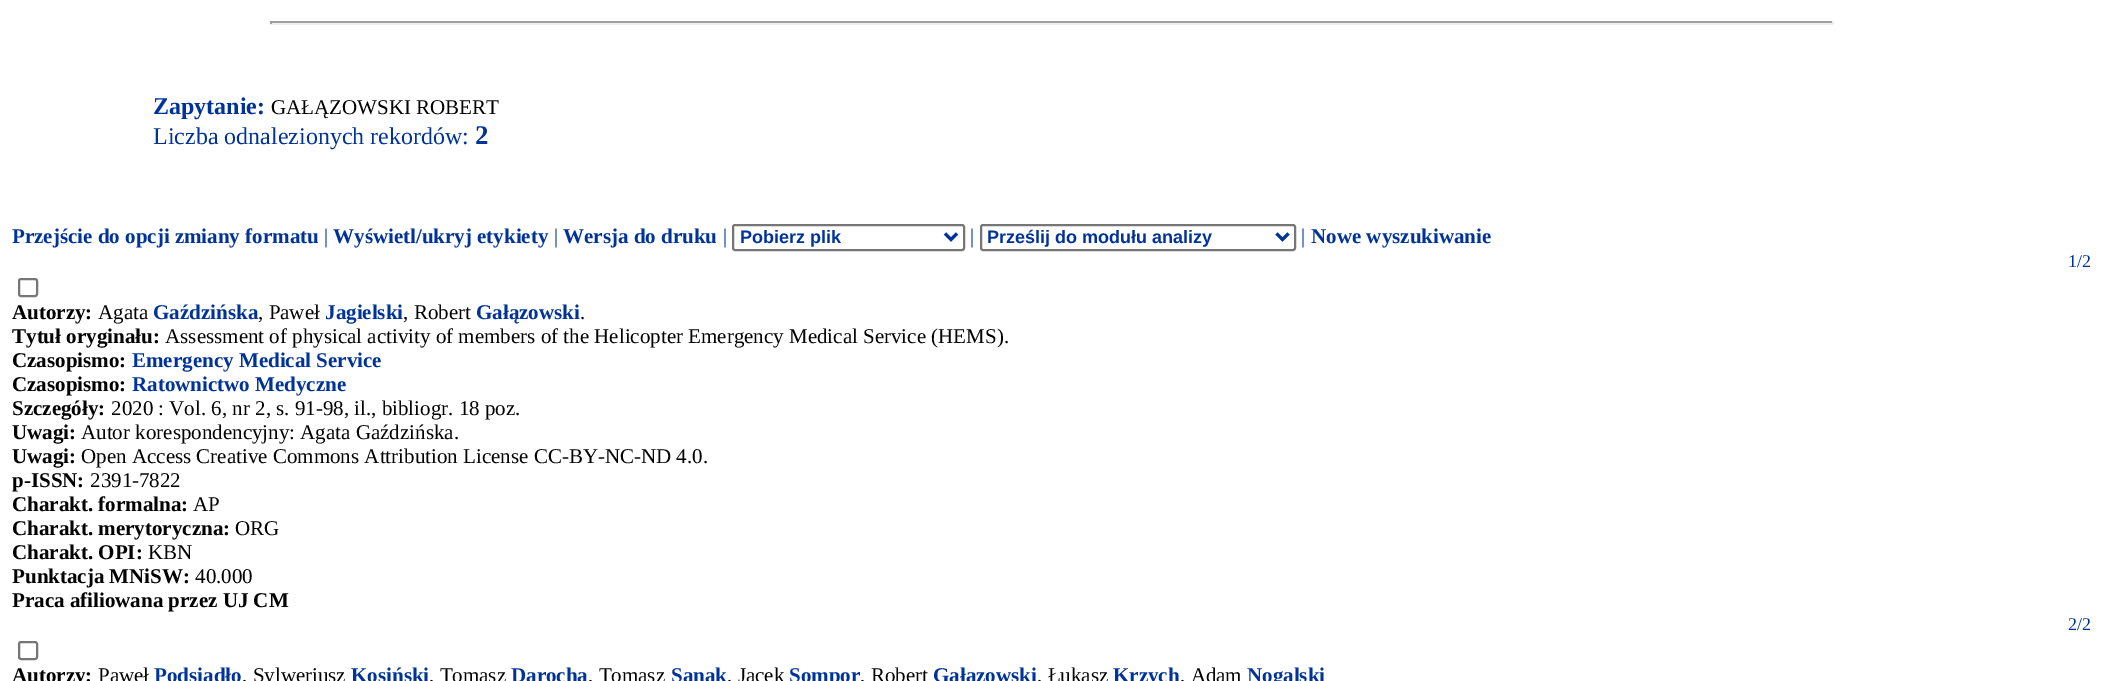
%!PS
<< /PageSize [2102 681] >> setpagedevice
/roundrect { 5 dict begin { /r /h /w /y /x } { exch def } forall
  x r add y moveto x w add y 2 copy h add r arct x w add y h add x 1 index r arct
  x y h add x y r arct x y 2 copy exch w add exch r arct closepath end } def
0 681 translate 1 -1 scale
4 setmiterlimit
1 setgray
0 0 2102 681 rectfill
0.624 setgray
270 21 1563 2 rectfill
0.933 setgray
1832 21 2 3 rectfill
270 23 1563 2 rectfill
0.624 setgray
270 21 2 3 rectfill
/LiberationSerif-Bold [24 0 0 -24 0 0] selectfont
0 0.2 0.6 setrgbcolor
153 114 moveto (Zapytanie:) show
/LiberationSerif-Regular [21 0 0 -21 0 0] selectfont
0 setgray
271 114 moveto (GAŁĄZOWSKI ROBERT) show
/LiberationSerif-Regular [24 0 0 -24 0 0] selectfont
0 0.2 0.6 setrgbcolor
153 144 moveto (Liczba odnalezionych rekordów:) show
/LiberationSerif-Bold [27 0 0 -27 0 0] selectfont
475 144 moveto (2) show
/LiberationSerif-Bold [21 0 0 -21 0 0] selectfont
12 243 moveto (Przejście do opcji zmiany formatu) show
/LiberationSerif-Regular [21 0 0 -21 0 0] selectfont
324 243 moveto (|) show
/LiberationSerif-Bold [21 0 0 -21 0 0] selectfont
333 243 moveto (Wyświetl/ukryj etykiety) show
/LiberationSerif-Regular [21 0 0 -21 0 0] selectfont
554 243 moveto (|) show
/LiberationSerif-Bold [21 0 0 -21 0 0] selectfont
563 243 moveto (Wersja do druku) show
/LiberationSerif-Regular [21 0 0 -21 0 0] selectfont
723 243 moveto (|) show
0.463 setgray
2 setlinewidth
733 225 231 25 2 roundrect stroke
0 0.2 0.6 setrgbcolor
3 setlinewidth
newpath 945 233.5 moveto 951 239.5 lineto 957 233.5 lineto stroke
/LiberationSans-Bold [18 0 0 -18 0 0] selectfont
740 243 moveto (Pobierz plik) show
/LiberationSerif-Regular [21 0 0 -21 0 0] selectfont
970 243 moveto (|) show
0.463 setgray
2 setlinewidth
981 225 314 25 2 roundrect stroke
0 0.2 0.6 setrgbcolor
3 setlinewidth
newpath 1276.5 233.5 moveto 1282.5 239.5 lineto 1288.5 233.5 lineto stroke
/LiberationSans-Bold [18 0 0 -18 0 0] selectfont
987 243 moveto (Prześlij do modułu analizy) show
/LiberationSerif-Regular [21 0 0 -21 0 0] selectfont
1301 243 moveto (|) show
/LiberationSerif-Bold [21 0 0 -21 0 0] selectfont
1311 243 moveto (Nowe wyszukiwanie) show
/LiberationSerif-Regular [18 0 0 -18 0 0] selectfont
2068 267 moveto (1/2) show
0.463 setgray
2 setlinewidth
19 279 18 17 2 roundrect stroke
/LiberationSerif-Bold [21 0 0 -21 0 0] selectfont
0 setgray
12 319 moveto (Autorzy:) show
/LiberationSerif-Regular [21 0 0 -21 0 0] selectfont
98 319 moveto (Agata) show
/LiberationSerif-Bold [21 0 0 -21 0 0] selectfont
0 0.2 0.6 setrgbcolor
153 319 moveto (Gaździńska) show
/LiberationSerif-Regular [21 0 0 -21 0 0] selectfont
0 setgray
258 319 moveto (, Paweł) show
/LiberationSerif-Bold [21 0 0 -21 0 0] selectfont
0 0.2 0.6 setrgbcolor
325 319 moveto (Jagielski) show
/LiberationSerif-Regular [21 0 0 -21 0 0] selectfont
0 setgray
403 319 moveto (, Robert) show
/LiberationSerif-Bold [21 0 0 -21 0 0] selectfont
0 0.2 0.6 setrgbcolor
476 319 moveto (Gałązowski) show
/LiberationSerif-Regular [21 0 0 -21 0 0] selectfont
0 setgray
580 319 moveto (.) show
/LiberationSerif-Bold [21 0 0 -21 0 0] selectfont
12 343 moveto (Tytuł oryginału:) show
/LiberationSerif-Regular [21 0 0 -21 0 0] selectfont
165 343 moveto (Assessment of physical activity of members of the Helicopter Emergency Medical Service \(HEMS\).) show
/LiberationSerif-Bold [21 0 0 -21 0 0] selectfont
12 367 moveto (Czasopismo:) show
0 0.2 0.6 setrgbcolor
132 367 moveto (Emergency Medical Service) show
0 setgray
12 391 moveto (Czasopismo:) show
0 0.2 0.6 setrgbcolor
132 391 moveto (Ratownictwo Medyczne) show
0 setgray
12 415 moveto (Szczegóły:) show
/LiberationSerif-Regular [21 0 0 -21 0 0] selectfont
111 415 moveto (2020 : Vol. 6, nr 2, s. 91-98, il., bibliogr. 18 poz.) show
/LiberationSerif-Bold [21 0 0 -21 0 0] selectfont
12 439 moveto (Uwagi:) show
/LiberationSerif-Regular [21 0 0 -21 0 0] selectfont
81 439 moveto (Autor korespondencyjny: Agata Gaździńska.) show
/LiberationSerif-Bold [21 0 0 -21 0 0] selectfont
12 463 moveto (Uwagi:) show
/LiberationSerif-Regular [21 0 0 -21 0 0] selectfont
81 463 moveto (Open Access Creative Commons Attribution License CC-BY-NC-ND 4.0.) show
/LiberationSerif-Bold [21 0 0 -21 0 0] selectfont
12 487 moveto (p-ISSN:) show
/LiberationSerif-Regular [21 0 0 -21 0 0] selectfont
90 487 moveto (2391-7822) show
/LiberationSerif-Bold [21 0 0 -21 0 0] selectfont
12 511 moveto (Charakt. formalna:) show
/LiberationSerif-Regular [21 0 0 -21 0 0] selectfont
193 511 moveto (AP) show
/LiberationSerif-Bold [21 0 0 -21 0 0] selectfont
12 535 moveto (Charakt. merytoryczna:) show
/LiberationSerif-Regular [21 0 0 -21 0 0] selectfont
235 535 moveto (ORG) show
/LiberationSerif-Bold [21 0 0 -21 0 0] selectfont
12 559 moveto (Charakt. OPI:) show
/LiberationSerif-Regular [21 0 0 -21 0 0] selectfont
148 559 moveto (KBN) show
/LiberationSerif-Bold [21 0 0 -21 0 0] selectfont
12 583 moveto (Punktacja MNiSW:) show
/LiberationSerif-Regular [21 0 0 -21 0 0] selectfont
195 583 moveto (40.000) show
/LiberationSerif-Bold [21 0 0 -21 0 0] selectfont
12 607 moveto (Praca afiliowana przez UJ CM) show
/LiberationSerif-Regular [18 0 0 -18 0 0] selectfont
0 0.2 0.6 setrgbcolor
2068 630 moveto (2/2) show
0.463 setgray
19 642 18 17 2 roundrect stroke
/LiberationSerif-Bold [21 0 0 -21 0 0] selectfont
0 setgray
12 682 moveto (Autorzy:) show
/LiberationSerif-Regular [21 0 0 -21 0 0] selectfont
98 682 moveto (Paweł) show
/LiberationSerif-Bold [21 0 0 -21 0 0] selectfont
0 0.2 0.6 setrgbcolor
154 682 moveto (Podsiadło) show
/LiberationSerif-Regular [21 0 0 -21 0 0] selectfont
0 setgray
242 682 moveto (, Sylweriusz) show
/LiberationSerif-Bold [21 0 0 -21 0 0] selectfont
0 0.2 0.6 setrgbcolor
351 682 moveto (Kosiński) show
/LiberationSerif-Regular [21 0 0 -21 0 0] selectfont
0 setgray
429 682 moveto (, Tomasz) show
/LiberationSerif-Bold [21 0 0 -21 0 0] selectfont
0 0.2 0.6 setrgbcolor
511 682 moveto (Darocha) show
/LiberationSerif-Regular [21 0 0 -21 0 0] selectfont
0 setgray
588 682 moveto (, Tomasz) show
/LiberationSerif-Bold [21 0 0 -21 0 0] selectfont
0 0.2 0.6 setrgbcolor
671 682 moveto (Sanak) show
/LiberationSerif-Regular [21 0 0 -21 0 0] selectfont
0 setgray
727 682 moveto (, Jacek) show
/LiberationSerif-Bold [21 0 0 -21 0 0] selectfont
0 0.2 0.6 setrgbcolor
789 682 moveto (Sompor) show
/LiberationSerif-Regular [21 0 0 -21 0 0] selectfont
0 setgray
860 682 moveto (, Robert) show
/LiberationSerif-Bold [21 0 0 -21 0 0] selectfont
0 0.2 0.6 setrgbcolor
933 682 moveto (Gałązowski) show
/LiberationSerif-Regular [21 0 0 -21 0 0] selectfont
0 setgray
1037 682 moveto (, Łukasz) show
/LiberationSerif-Bold [21 0 0 -21 0 0] selectfont
0 0.2 0.6 setrgbcolor
1113 682 moveto (Krzych) show
/LiberationSerif-Regular [21 0 0 -21 0 0] selectfont
0 setgray
1180 682 moveto (, Adam) show
/LiberationSerif-Bold [21 0 0 -21 0 0] selectfont
0 0.2 0.6 setrgbcolor
1247 682 moveto (Nogalski) show
showpage
